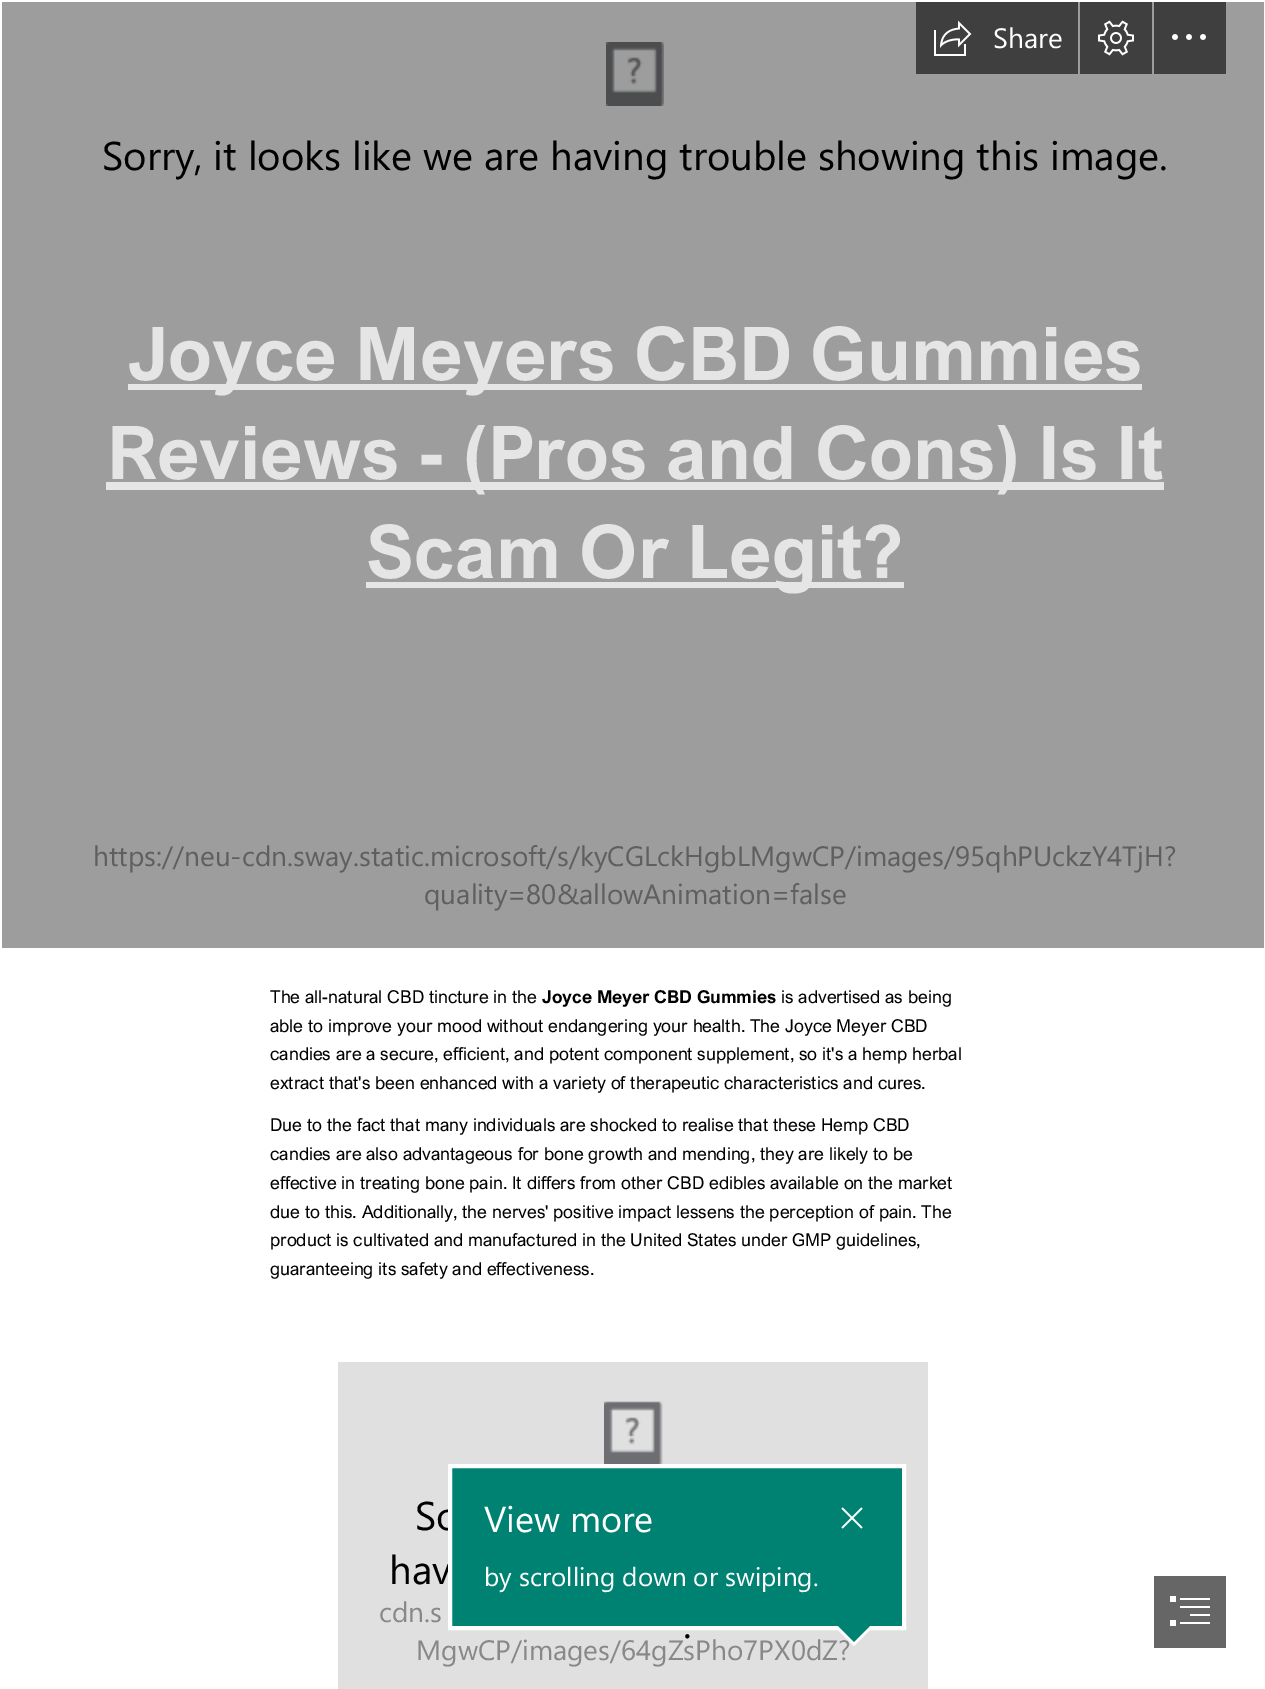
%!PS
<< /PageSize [1265 1689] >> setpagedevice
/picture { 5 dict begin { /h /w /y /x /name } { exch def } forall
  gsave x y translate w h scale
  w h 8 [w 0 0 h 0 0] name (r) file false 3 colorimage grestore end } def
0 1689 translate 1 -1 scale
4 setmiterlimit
1 setgray
0 0 1265 1689 rectfill
0.616 setgray
2 2 1262 946 rectfill
0.247 setgray
916 2 162 72 rectfill
(img1.rgb) 934 20 38 36 picture
/SegoeUI-Regular [28 0 0 -28 0 0] selectfont
1 setgray
993 48 moveto (Share) show
0.247 setgray
1080 2 72 72 rectfill
(img2.rgb) 1098 20 36 36 picture
1154 2 72 72 rectfill
(img3.rgb) 1172 34 34 6 picture
(img4.rgb) 606 42 58 64 picture
/SegoeUI-Regular [40 0 0 -40 0 0] selectfont
0 setgray
102 170 moveto (Sorry, it looks like we are having trouble showing this image.) show
/SegoeUI-Regular [28 0 0 -28 0 0] selectfont
0.373 setgray
93 866 moveto (https://neu-cdn.sway.static.microsoft/s/kyCGLckHgbLMgwCP/images/95qhPUckzY4TjH?) show
424 904 moveto (quality=80&allowAnimation=false) show
0.898 setgray
128 384 1014 6 rectfill
/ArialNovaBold-Bold [74.2 0 0 -74.2 0 0] selectfont
128 380 moveto (Joyce Meyers CBD Gummies) show
106 482 1058 8 rectfill
107 479 moveto (Reviews - \(Pros and Cons\) Is It) show
366 582 538 6 rectfill
366 578 moveto (Scam Or Legit?) show
/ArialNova-Regular [17.8 0 0 -17.8 0 0] selectfont
0 setgray
270 1003 moveto (The all-natural CBD tincture in the) show
/ArialNovaBold-Bold [17.8 0 0 -17.8 0 0] selectfont
542 1003 moveto (Joyce Meyer CBD Gummies) show
/ArialNova-Regular [17.8 0 0 -17.8 0 0] selectfont
781 1003 moveto (is advertised as being) show
270 1032 moveto (able to improve your mood without endangering your health. The Joyce Meyer CBD) show
270 1060 moveto (candies are a secure, efficient, and potent component supplement, so it's a hemp herbal) show
270 1089 moveto (extract that's been enhanced with a variety of therapeutic characteristics and cures.) show
270 1131 moveto (Due to the fact that many individuals are shocked to realise that these Hemp CBD) show
270 1160 moveto (candies are also advantageous for bone growth and mending, they are likely to be) show
270 1189 moveto (effective in treating bone pain. It differs from other CBD edibles available on the market) show
270 1218 moveto (due to this. Additionally, the nerves' positive impact lessens the perception of pain. The) show
270 1246 moveto (product is cultivated and manufactured in the United States under GMP guidelines,) show
270 1275 moveto (guaranteeing its safety and effectiveness.) show
0.878 setgray
338 1362 590 327 rectfill
(img5.rgb) 604 1401 59 63 picture
/SegoeUI-Regular [40 0 0 -40 0 0] selectfont
0 setgray
415 1530 moveto (So) show
389 1584 moveto (hav) show
/SegoeUI-Regular [28 0 0 -28 0 0] selectfont
0.533 setgray
379 1622 moveto (cdn.s) show
416 1660 moveto (MgwCP/images/64gZsPho7PX0dZ?) show
/SegoeUI-Regular [40 0 0 -40 0 0] selectfont
0 setgray
683 1638 moveto (.) show
0 0.51 0.447 setrgbcolor
newpath 450 1466 moveto 904 1466 lineto 904 1628 lineto 450 1628 lineto closepath gsave fill grestore
1 setgray
4 setlinewidth
stroke
/SegoeUI-Regular [36 0 0 -36 0 0] selectfont
484 1532 moveto (View more) show
/SegoeUI-Regular [26 0 0 -26 0 0] selectfont
484 1586 moveto (by scrolling down or swiping.) show
(img6.rgb) 841 1507 22 22 picture
newpath 834 1626 moveto 874 1626 lineto 854 1646 lineto closepath fill
0 0.51 0.447 setrgbcolor
newpath 838 1626 moveto 870 1626 lineto 854 1642 lineto closepath fill
0.4 setgray
1154 1576 72 72 rectfill
(img7.rgb) 1170 1596 40 30 picture
showpage
